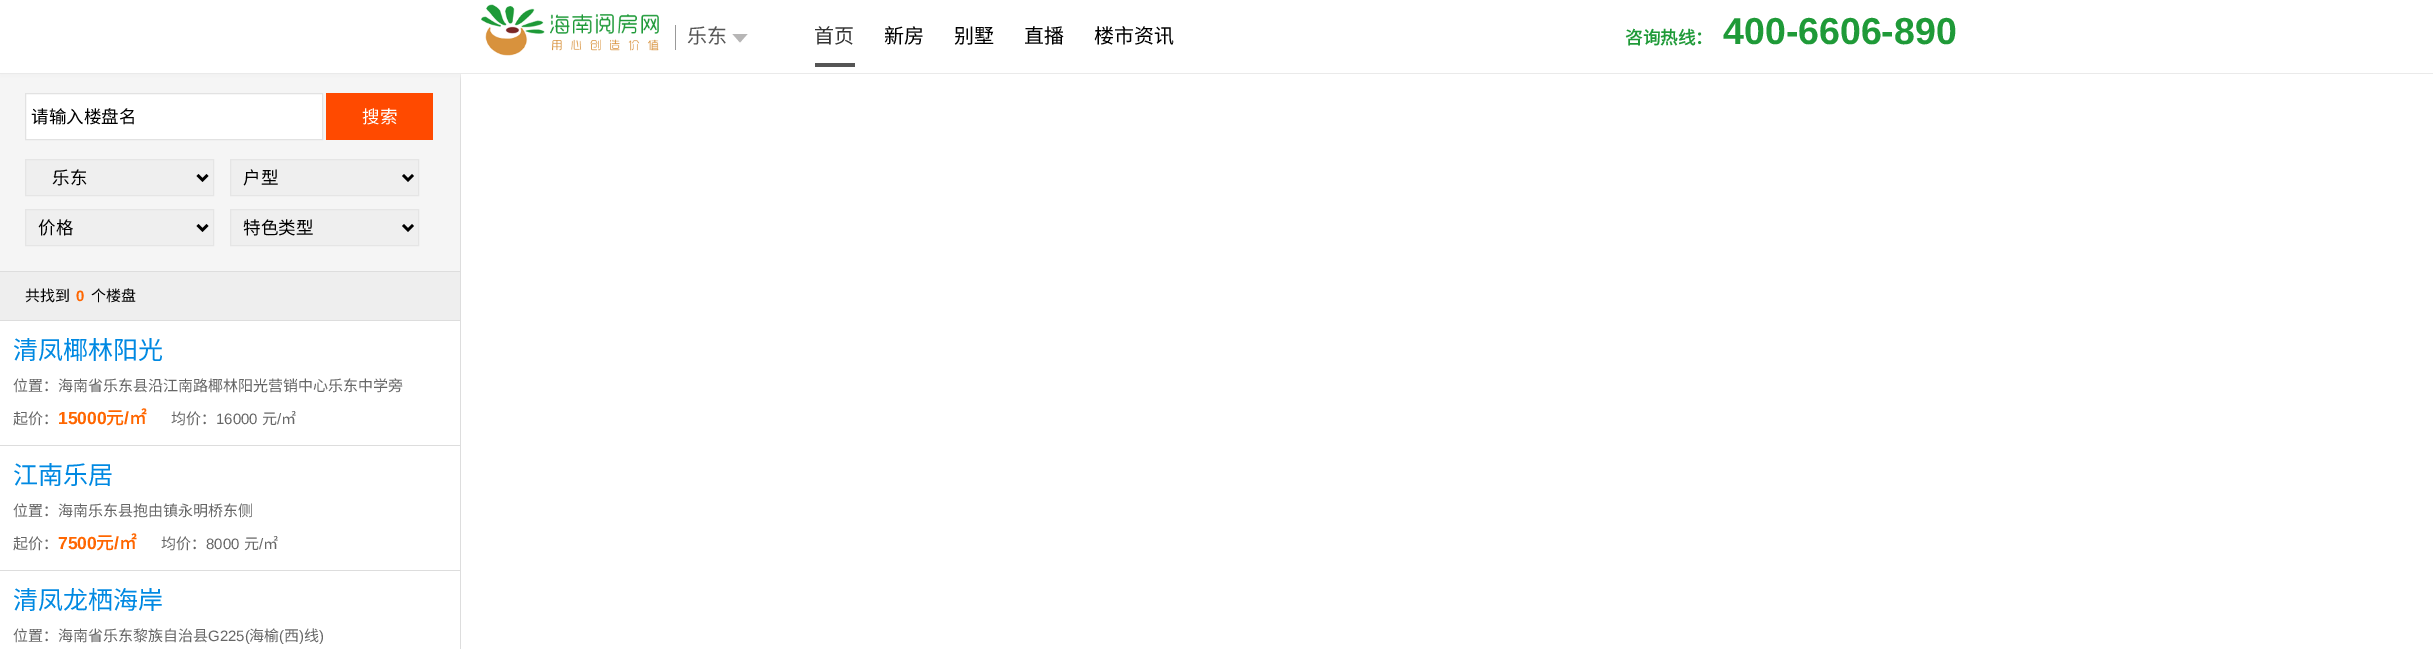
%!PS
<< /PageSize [2433 649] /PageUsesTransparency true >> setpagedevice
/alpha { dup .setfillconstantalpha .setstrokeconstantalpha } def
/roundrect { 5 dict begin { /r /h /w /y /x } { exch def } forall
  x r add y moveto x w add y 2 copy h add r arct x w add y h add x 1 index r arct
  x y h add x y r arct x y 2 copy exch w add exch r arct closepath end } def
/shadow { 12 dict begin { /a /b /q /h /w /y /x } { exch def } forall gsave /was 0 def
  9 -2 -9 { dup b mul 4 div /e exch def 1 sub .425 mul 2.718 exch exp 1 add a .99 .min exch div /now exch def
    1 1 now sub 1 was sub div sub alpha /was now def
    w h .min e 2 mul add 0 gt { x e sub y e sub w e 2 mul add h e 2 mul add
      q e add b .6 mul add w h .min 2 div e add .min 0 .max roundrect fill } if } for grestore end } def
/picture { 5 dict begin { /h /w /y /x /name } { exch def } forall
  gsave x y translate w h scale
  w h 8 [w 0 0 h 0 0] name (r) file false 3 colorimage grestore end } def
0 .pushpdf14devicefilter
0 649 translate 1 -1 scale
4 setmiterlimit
0.961 setgray
0 0 2433 649 rectfill
0.867 setgray
460 74 1 575 rectfill
0.945 setgray
0 3 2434 73 0 3 1 shadow
1 setgray
0 0 2433 73 rectfill
0.918 setgray
0 73 2433 1 rectfill
(img1.rgb) 481 4 178 52 picture
0.6 setgray
675 25 1 25 rectfill
/NotoSansCJKSC-Regular [20 0 0 -20 0 0] selectfont
0.333 setgray
687 43 moveto (乐东) show
0.718 0.714 0.714 setrgbcolor
newpath 732.5 34 moveto 747.5 34 lineto 740 42.5 lineto closepath fill
0.333 setgray
815 63 40 4 rectfill
0.2 setgray
814 43 moveto (首页) show
0 setgray
884 43 moveto (新房) show
954 43 moveto (别墅) show
1024 43 moveto (直播) show
1094 43 moveto (楼市资讯) show
/NotoSansCJKSC-Bold [17.5 0 0 -17.5 0 0] selectfont
0.122 0.604 0.22 setrgbcolor
1625 44 moveto (咨询热线：) show
/LiberationSans-Bold [37.5 0 0 -37.5 0 0] selectfont
1723 44 moveto (400-6606-890) show
1 setgray
newpath 25.5 93.5 moveto 322.5 93.5 lineto 322.5 139.5 lineto 25.5 139.5 lineto closepath gsave fill grestore
0.886 setgray
stroke
/NotoSansCJKSC-Regular [17.5 0 0 -17.5 0 0] selectfont
0 setgray
31 123 moveto (请输入楼盘名) show
1 0.29 0 setrgbcolor
326 93 107 47 rectfill
1 setgray
362 123 moveto (搜索) show
0.937 setgray
newpath 25.5 159.5 moveto 213.5 159.5 lineto 213.5 195.5 lineto 25.5 195.5 lineto closepath gsave fill grestore
0.898 setgray
stroke
0 setgray
2.5 setlinewidth
newpath 197.5 175 moveto 202.5 180 lineto 207.5 175 lineto stroke
52 184 moveto (乐东) show
0.937 setgray
newpath 230.5 159.5 moveto 418.5 159.5 lineto 418.5 195.5 lineto 230.5 195.5 lineto closepath gsave fill grestore
0.898 setgray
1 setlinewidth
stroke
0 setgray
2.5 setlinewidth
newpath 403 175 moveto 408 180 lineto 413 175 lineto stroke
243 184 moveto (户型) show
0.937 setgray
newpath 25.5 209.5 moveto 213.5 209.5 lineto 213.5 245.5 lineto 25.5 245.5 lineto closepath gsave fill grestore
0.898 setgray
1 setlinewidth
stroke
0 setgray
2.5 setlinewidth
newpath 197.5 225 moveto 202.5 230 lineto 207.5 225 lineto stroke
38 234 moveto (价格) show
0.937 setgray
newpath 230.5 209.5 moveto 418.5 209.5 lineto 418.5 245.5 lineto 230.5 245.5 lineto closepath gsave fill grestore
0.898 setgray
1 setlinewidth
stroke
0 setgray
2.5 setlinewidth
newpath 403 225 moveto 408 230 lineto 413 225 lineto stroke
243 234 moveto (特色类型) show
0.933 setgray
0 272 460 48 rectfill
0.867 setgray
0 271 460 1 rectfill
0 320 460 1 rectfill
/NotoSansCJKSC-Regular [15 0 0 -15 0 0] selectfont
0 setgray
25 301 moveto (共找到) show
/LiberationSans-Bold [15 0 0 -15 0 0] selectfont
1 0.4 0 setrgbcolor
76 301 moveto (0) show
/NotoSansCJKSC-Regular [15 0 0 -15 0 0] selectfont
0 setgray
91 301 moveto (个楼盘) show
0.867 setgray
0 445 460 1 rectfill
1 setgray
0 321 460 124 rectfill
/NotoSansCJKSC-Regular [25 0 0 -25 0 0] selectfont
0 0.537 0.886 setrgbcolor
13 359 moveto (清凤椰林阳光) show
/NotoSansCJKSC-Regular [15 0 0 -15 0 0] selectfont
0.4 setgray
13 391 moveto (位置：海南省乐东县沿江南路椰林阳光营销中心乐东中学旁) show
13 424 moveto (起价：) show
/LiberationSans-Bold [17.5 0 0 -17.5 0 0] selectfont
1 0.4 0 setrgbcolor
58 424 moveto (15000) show
/NotoSansCJKSC-Bold [17.5 0 0 -17.5 0 0] selectfont
106 424 moveto (元) show
/LiberationSans-Bold [17.5 0 0 -17.5 0 0] selectfont
124 424 moveto (/) show
/NotoSansCJKSC-Bold [17.5 0 0 -17.5 0 0] selectfont
129 424 moveto (㎡) show
/NotoSansCJKSC-Regular [15 0 0 -15 0 0] selectfont
0.4 setgray
171 424 moveto (均价：) show
/LiberationSans-Regular [15 0 0 -15 0 0] selectfont
216 424 moveto (16000) show
/NotoSansCJKSC-Regular [15 0 0 -15 0 0] selectfont
262 424 moveto (元) show
/LiberationSans-Regular [15 0 0 -15 0 0] selectfont
277 424 moveto (/) show
/NotoSansCJKSC-Regular [15 0 0 -15 0 0] selectfont
281 424 moveto (㎡) show
0.867 setgray
0 570 460 1 rectfill
1 setgray
0 446 460 124 rectfill
/NotoSansCJKSC-Regular [25 0 0 -25 0 0] selectfont
0 0.537 0.886 setrgbcolor
13 484 moveto (江南乐居) show
/NotoSansCJKSC-Regular [15 0 0 -15 0 0] selectfont
0.4 setgray
13 516 moveto (位置：海南乐东县抱由镇永明桥东侧) show
13 549 moveto (起价：) show
/LiberationSans-Bold [17.5 0 0 -17.5 0 0] selectfont
1 0.4 0 setrgbcolor
58 549 moveto (7500) show
/NotoSansCJKSC-Bold [17.5 0 0 -17.5 0 0] selectfont
96 549 moveto (元) show
/LiberationSans-Bold [17.5 0 0 -17.5 0 0] selectfont
114 549 moveto (/) show
/NotoSansCJKSC-Bold [17.5 0 0 -17.5 0 0] selectfont
119 549 moveto (㎡) show
/NotoSansCJKSC-Regular [15 0 0 -15 0 0] selectfont
0.4 setgray
161 549 moveto (均价：) show
/LiberationSans-Regular [15 0 0 -15 0 0] selectfont
206 549 moveto (8000) show
/NotoSansCJKSC-Regular [15 0 0 -15 0 0] selectfont
244 549 moveto (元) show
/LiberationSans-Regular [15 0 0 -15 0 0] selectfont
259 549 moveto (/) show
/NotoSansCJKSC-Regular [15 0 0 -15 0 0] selectfont
263 549 moveto (㎡) show
1 setgray
0 571 460 78 rectfill
/NotoSansCJKSC-Regular [25 0 0 -25 0 0] selectfont
0 0.537 0.886 setrgbcolor
13 609 moveto (清凤龙栖海岸) show
/NotoSansCJKSC-Regular [15 0 0 -15 0 0] selectfont
0.4 setgray
13 641 moveto (位置：海南省乐东黎族自治县) show
/LiberationSans-Regular [15 0 0 -15 0 0] selectfont
208 641 moveto (G225\() show
/NotoSansCJKSC-Regular [15 0 0 -15 0 0] selectfont
249 641 moveto (海榆) show
/LiberationSans-Regular [15 0 0 -15 0 0] selectfont
279 641 moveto (\() show
/NotoSansCJKSC-Regular [15 0 0 -15 0 0] selectfont
284 641 moveto (西) show
/LiberationSans-Regular [15 0 0 -15 0 0] selectfont
299 641 moveto (\)) show
/NotoSansCJKSC-Regular [15 0 0 -15 0 0] selectfont
304 641 moveto (线) show
/LiberationSans-Regular [15 0 0 -15 0 0] selectfont
319 641 moveto (\)) show
1 setgray
461 74 1972 575 rectfill
.poppdf14devicefilter showpage
